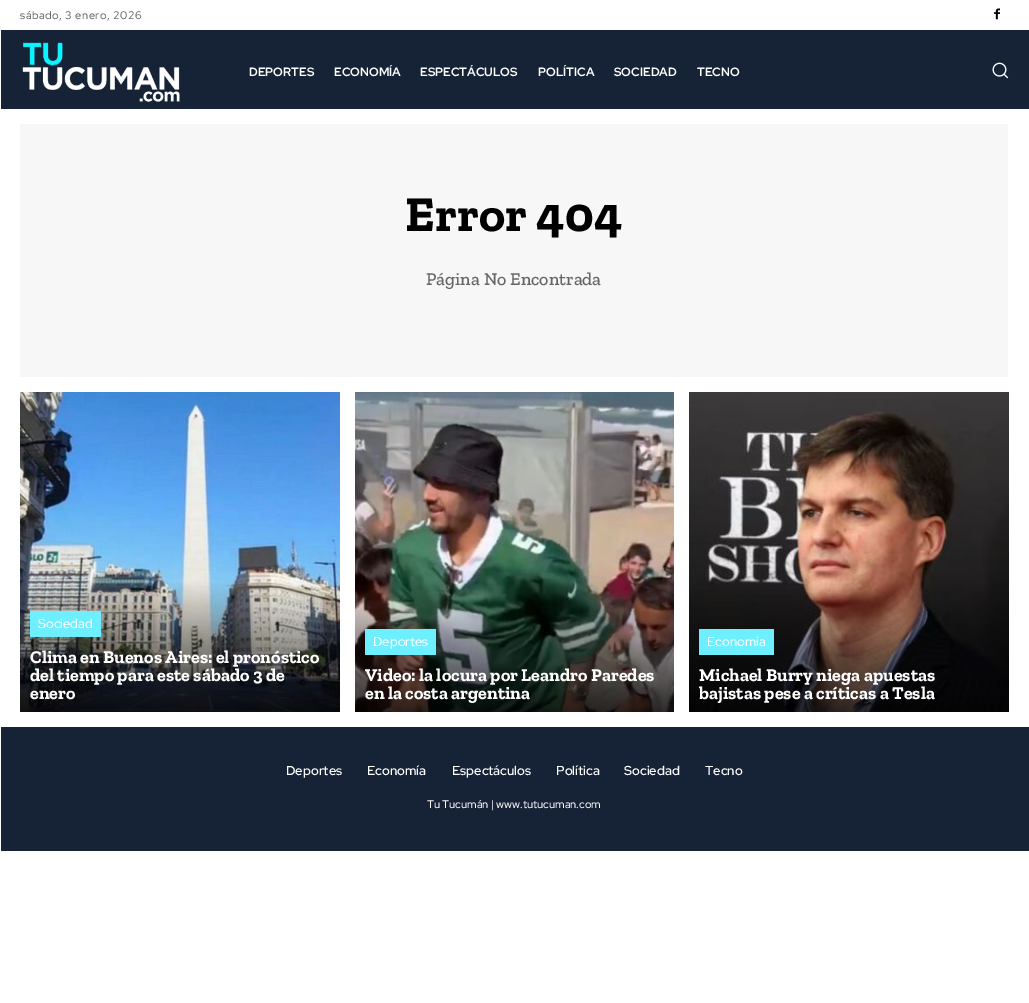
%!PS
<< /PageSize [1029 1003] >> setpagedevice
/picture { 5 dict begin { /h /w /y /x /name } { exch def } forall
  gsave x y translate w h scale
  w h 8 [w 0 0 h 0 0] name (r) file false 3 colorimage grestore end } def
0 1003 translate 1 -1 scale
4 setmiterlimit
1 setgray
0 0 1029 1003 rectfill
/RedHatDisplay-Medium [11 0 0 -11 0 0] selectfont
0.4 setgray
20 19 moveto 0.5 0 (sábado, 3 enero, 2026) ashow
(img1.rgb) 994 8 6 12 picture
0.086 0.137 0.212 setrgbcolor
1 30 1028 79 rectfill
(img2.rgb) 22 42 158 60 picture
/RedHatDisplay-Bold [12 0 0 -12 0 0] selectfont
1 setgray
249 76 moveto (DEPORTES) show
334 76 moveto (ECONOMÍA) show
420 76 moveto (ESPECTÁCULOS) show
538 76 moveto (POLÍTICA) show
614 76 moveto (SOCIEDAD) show
697 76 moveto (TECNO) show
(img3.rgb) 992 62 17 17 picture
0.969 setgray
20 124 988 253 rectfill
/ZillaSlab-Bold [50 0 0 -50 0 0] selectfont
0 setgray
405 231 moveto (Error 404) show
/ZillaSlab-Medium [18 0 0 -18 0 0] selectfont
0.4 setgray
426 285 moveto (Página No Encontrada) show
(img4.rgb) 20 392 320 320 picture
0.431 0.937 1 setrgbcolor
30 611 71 26 rectfill
/RedHatDisplay-Medium [13 0 0 -13 0 0] selectfont
1 setgray
38 628 moveto (Sociedad) show
/ZillaSlab-Bold [18 0 0 -18 0 0] selectfont
30 663 moveto (Clima en Buenos Aires: el pronóstico) show
30 681 moveto (del tiempo para este sábado 3 de) show
30 699 moveto (enero) show
(img5.rgb) 355 392 319 320 picture
0.431 0.937 1 setrgbcolor
365 629 71 26 rectfill
/RedHatDisplay-Medium [13 0 0 -13 0 0] selectfont
1 setgray
373 646 moveto (Deportes) show
/ZillaSlab-Bold [18 0 0 -18 0 0] selectfont
365 681 moveto (Video: la locura por Leandro Paredes) show
365 699 moveto (en la costa argentina) show
(img6.rgb) 689 392 320 320 picture
0.431 0.937 1 setrgbcolor
699 629 75 26 rectfill
/RedHatDisplay-Medium [13 0 0 -13 0 0] selectfont
1 setgray
707 646 moveto (Economía) show
/ZillaSlab-Bold [18 0 0 -18 0 0] selectfont
699 681 moveto (Michael Burry niega apuestas) show
699 699 moveto (bajistas pese a críticas a Tesla) show
0.086 0.137 0.212 setrgbcolor
1 727 1028 124 rectfill
/RedHatDisplay-SemiBold [13 0 0 -13 0 0] selectfont
1 setgray
286 775 moveto (Deportes) show
367 775 moveto (Economía) show
452 775 moveto (Espectáculos) show
556 775 moveto (Política) show
624 775 moveto (Sociedad) show
705 775 moveto (Tecno) show
/RedHatDisplay-Medium [11 0 0 -11 0 0] selectfont
427 808 moveto (Tu Tucumán | www.tutucuman.com) show
showpage
